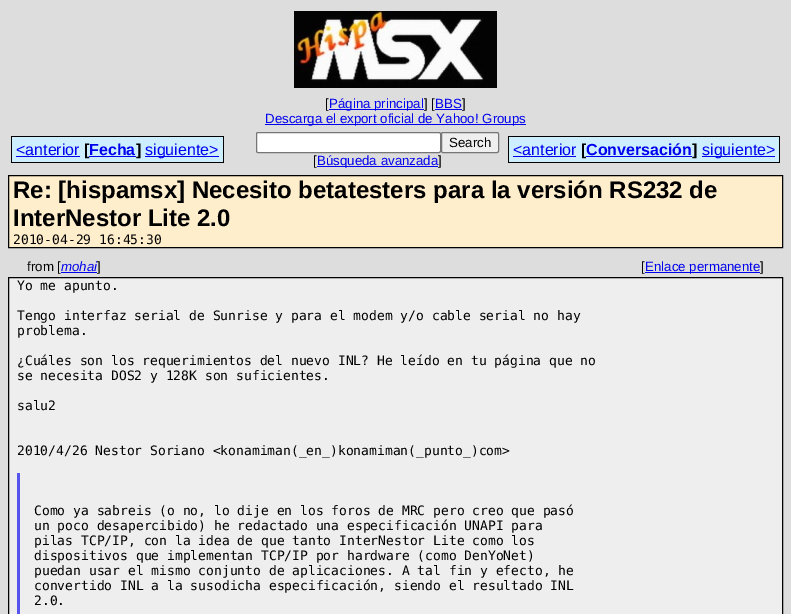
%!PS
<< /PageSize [791 614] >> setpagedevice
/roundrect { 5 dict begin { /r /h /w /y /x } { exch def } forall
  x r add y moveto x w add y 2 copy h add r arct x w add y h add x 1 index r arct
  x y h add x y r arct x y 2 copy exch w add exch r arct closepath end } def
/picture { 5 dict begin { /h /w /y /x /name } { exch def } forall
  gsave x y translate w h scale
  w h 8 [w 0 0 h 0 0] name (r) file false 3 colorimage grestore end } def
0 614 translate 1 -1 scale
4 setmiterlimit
0.867 setgray
0 0 791 614 rectfill
(img1.rgb) 294 11 203 77 picture
/LiberationSans-Regular [13.3 0 0 -13.3 0 0] selectfont
0 setgray
325 108 moveto ([) show
0 0 0.933 setrgbcolor
329 109 95 1 rectfill
329 108 moveto (Página principal) show
0 setgray
424 108 moveto (] [) show
0 0 0.933 setrgbcolor
435 108 moveto (BBS) show
435 109 27 1 rectfill
0 setgray
462 108 moveto (]) show
0 0 0.933 setrgbcolor
265 124 261 1 rectfill
265 123 moveto (Descarga el export oficial de Yahoo! Groups) show
0.8 0.933 1 setrgbcolor
12 137 68 25 rectfill
/LiberationSans-Regular [16 0 0 -16 0 0] selectfont
0 0 0.933 setrgbcolor
16 155 moveto (<anterior) show
0 setgray
11 136 69 1 rectfill
11 162 69 1 rectfill
11 136 1 27 rectfill
0.8 0.933 1 setrgbcolor
80 136 9 27 rectfill
0 setgray
80 136 56 1 rectfill
0 0 0.933 setrgbcolor
16 156 64 1 rectfill
0.8 0.933 1 setrgbcolor
89 137 47 25 rectfill
/LiberationSans-Bold [16 0 0 -16 0 0] selectfont
0 setgray
84 155 moveto ([) show
80 162 56 1 rectfill
0 0 0.933 setrgbcolor
89 156 47 1 rectfill
89 155 moveto (Fecha) show
0.8 0.933 1 setrgbcolor
136 136 9 27 rectfill
0 setgray
136 136 88 1 rectfill
136 155 moveto (]) show
136 162 9 1 rectfill
0.8 0.933 1 setrgbcolor
145 137 78 25 rectfill
0 0 0.933 setrgbcolor
145 156 74 1 rectfill
/LiberationSans-Regular [16 0 0 -16 0 0] selectfont
145 155 moveto (siguiente>) show
0 setgray
223 136 1 27 rectfill
145 162 79 1 rectfill
1 setgray
256.5 132.5 184 20 1.5 roundrect gsave fill grestore
0.463 setgray
stroke
0.937 setgray
441.5 132.5 57 20 1.5 roundrect gsave fill grestore
0.463 setgray
stroke
/LiberationSans-Regular [13.3 0 0 -13.3 0 0] selectfont
0 setgray
449 147 moveto (Search) show
313 165 moveto ([) show
0 0 0.933 setrgbcolor
317 166 121 1 rectfill
317 165 moveto (Búsqueda avanzada) show
0 setgray
438 165 moveto (]) show
0.8 0.933 1 setrgbcolor
509 137 67 25 rectfill
/LiberationSans-Regular [16 0 0 -16 0 0] selectfont
0 0 0.933 setrgbcolor
513 155 moveto (<anterior) show
0 setgray
508 136 68 1 rectfill
508 162 68 1 rectfill
508 136 1 27 rectfill
0.8 0.933 1 setrgbcolor
576 136 10 27 rectfill
0 setgray
576 136 116 1 rectfill
0 0 0.933 setrgbcolor
513 156 63 1 rectfill
/LiberationSans-Bold [16 0 0 -16 0 0] selectfont
0 setgray
581 155 moveto ([) show
576 162 116 1 rectfill
0.8 0.933 1 setrgbcolor
586 137 106 25 rectfill
0 0 0.933 setrgbcolor
586 156 106 1 rectfill
586 155 moveto (Conversación) show
0.8 0.933 1 setrgbcolor
692 136 10 27 rectfill
0 setgray
692 136 88 1 rectfill
692 155 moveto (]) show
692 162 10 1 rectfill
0.8 0.933 1 setrgbcolor
702 137 77 25 rectfill
0 0 0.933 setrgbcolor
702 156 73 1 rectfill
/LiberationSans-Regular [16 0 0 -16 0 0] selectfont
702 155 moveto (siguiente>) show
0 setgray
779 136 1 27 rectfill
702 162 78 1 rectfill
1 0.933 0.8 setrgbcolor
newpath 8.5 175.5 moveto 782.5 175.5 lineto 782.5 247.5 lineto 8.5 247.5 lineto closepath gsave fill grestore
0 setgray
stroke
/LiberationSans-Bold [24 0 0 -24 0 0] selectfont
13 198 moveto (Re: [hispamsx] Necesito betatesters para la versión RS232 de) show
13 226 moveto (InterNestor Lite 2.0) show
/DejaVuSansMono-Regular [13 0 0 -13 0 0] selectfont
13 244 moveto (2010-04-29 16:45:30) show
/LiberationSans-Regular [13.3 0 0 -13.3 0 0] selectfont
27 271 moveto (from [) show
0 0 0.933 setrgbcolor
61 272 36 1 rectfill
/LiberationSans-Italic [13.3 0 0 -13.3 0 0] selectfont
61 271 moveto (mohai) show
/LiberationSans-Regular [13.3 0 0 -13.3 0 0] selectfont
0 setgray
97 271 moveto (]) show
641 271 moveto ([) show
0 0 0.933 setrgbcolor
645 272 115 1 rectfill
645 271 moveto (Enlace permanente) show
0 setgray
760 271 moveto (]) show
0.933 setgray
newpath 8.5 277.5 moveto 782.5 277.5 lineto 782.5 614.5 lineto 8.5 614.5 lineto closepath gsave fill grestore
0 setgray
stroke
/DejaVuSansMono-Regular [13 0 0 -13 0 0] selectfont
17 290 moveto (Yo me apunto.) show
17 320 moveto (Tengo interfaz serial de Sunrise y para el modem y/o cable serial no hay) show
17 335 moveto (problema.) show
17 365 moveto (¿Cuáles son los requerimientos del nuevo INL? He leído en tu página que no) show
17 380 moveto (se necesita DOS2 y 128K son suficientes.) show
17 410 moveto (salu2) show
17 455 moveto (2010/4/26 Nestor Soriano <konamiman\(_en_\)konamiman\(_punto_\)com>) show
0.333 0.333 0.933 setrgbcolor
17 473 3 141 rectfill
0 setgray
34 515 moveto (Como ya sabreis \(o no, lo dije en los foros de MRC pero creo que pasó) show
34 530 moveto (un poco desapercibido\) he redactado una especificación UNAPI para) show
34 545 moveto (pilas TCP/IP, con la idea de que tanto InterNestor Lite como los) show
34 560 moveto (dispositivos que implementan TCP/IP por hardware \(como DenYoNet\)) show
34 575 moveto (puedan usar el mismo conjunto de aplicaciones. A tal fin y efecto, he) show
34 590 moveto (convertido INL a la susodicha especificación, siendo el resultado INL) show
34 605 moveto (2.0.) show
showpage
